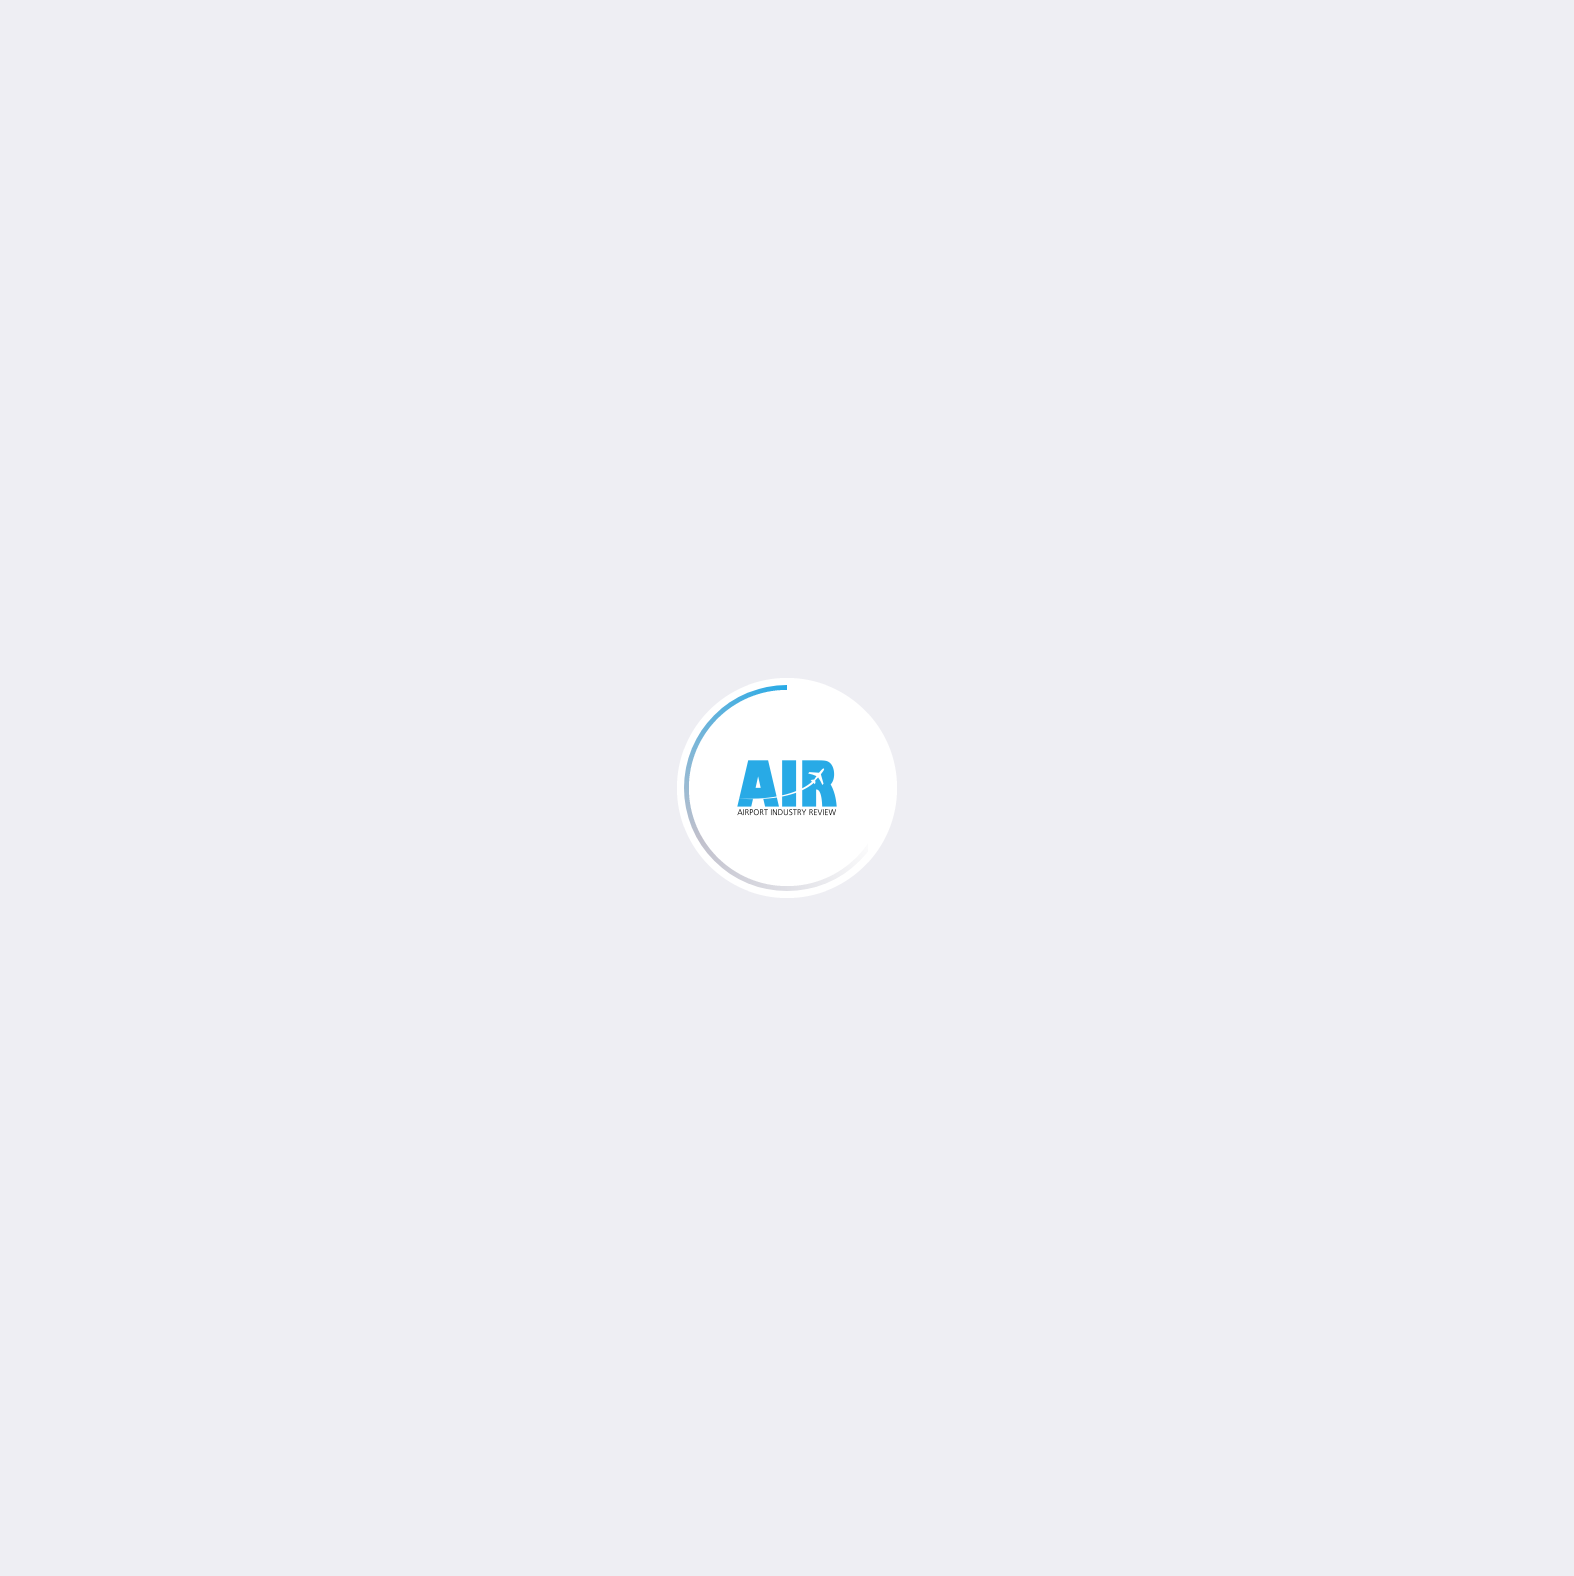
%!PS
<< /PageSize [1574 1576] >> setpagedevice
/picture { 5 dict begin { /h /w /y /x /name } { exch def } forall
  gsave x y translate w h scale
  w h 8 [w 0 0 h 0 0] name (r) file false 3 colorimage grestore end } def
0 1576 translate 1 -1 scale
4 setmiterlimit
0.933 0.933 0.953 setrgbcolor
0 0 1574 1576 rectfill
1 setgray
newpath 787 788 110 0 360 arc closepath fill
(img1.rgb) 684 685 184 206 picture
newpath 787 788 98 0 360 arc closepath fill
(img2.rgb) 737 760 100 56 picture
showpage
